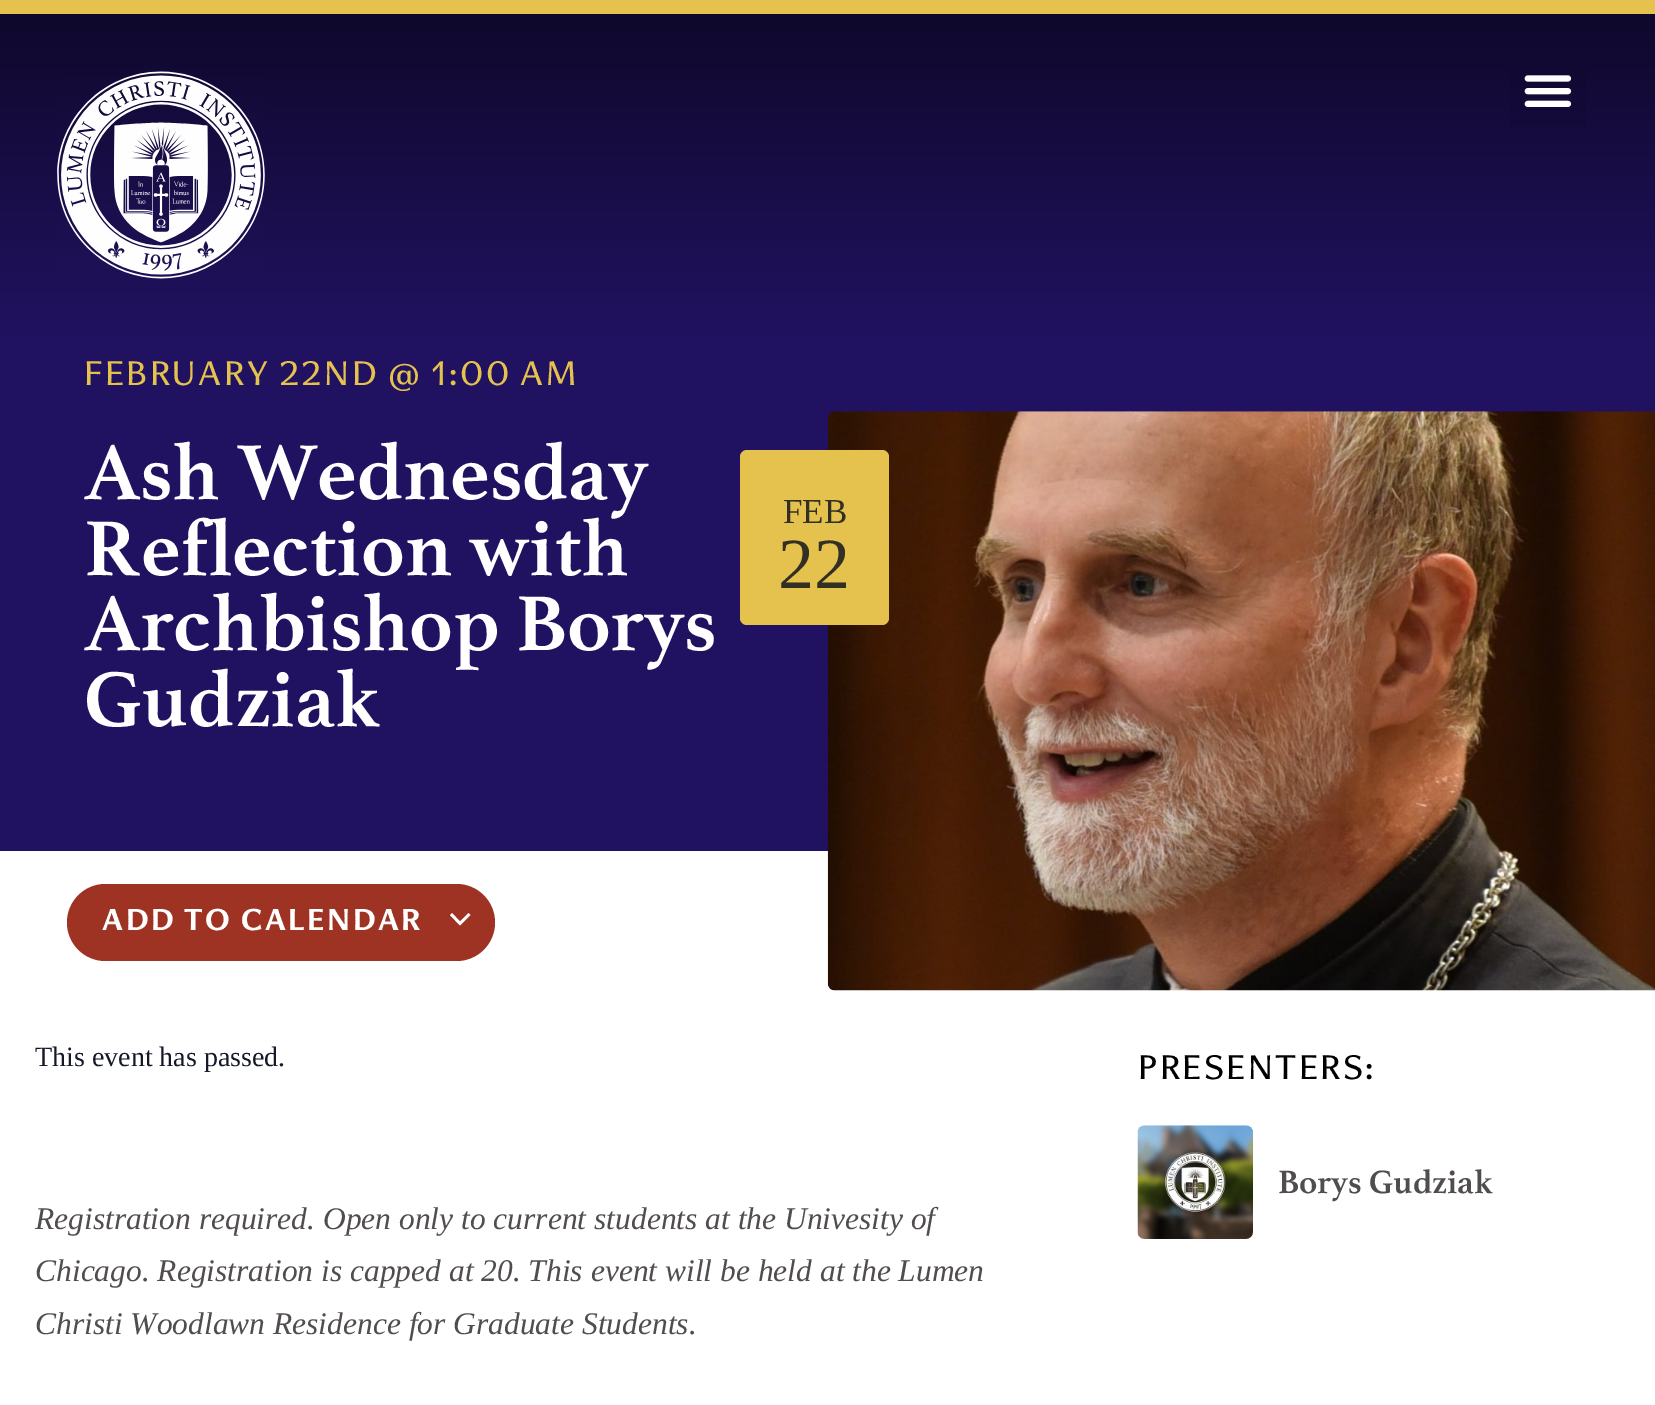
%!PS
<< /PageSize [1655 1405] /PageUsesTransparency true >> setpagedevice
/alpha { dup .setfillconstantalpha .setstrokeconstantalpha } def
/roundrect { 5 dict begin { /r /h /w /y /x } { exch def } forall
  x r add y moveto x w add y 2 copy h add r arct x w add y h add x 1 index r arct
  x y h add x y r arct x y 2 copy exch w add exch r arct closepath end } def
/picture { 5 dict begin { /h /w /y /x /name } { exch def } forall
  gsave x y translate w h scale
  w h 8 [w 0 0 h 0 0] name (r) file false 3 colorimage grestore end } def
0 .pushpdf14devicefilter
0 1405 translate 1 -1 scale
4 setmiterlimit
1 setgray
0 0 1655 1405 rectfill
gsave newpath 0 14 moveto 1655 14 lineto 1655 336 lineto 0 336 lineto closepath clip newpath
<< /ShadingType 2 /ColorSpace /DeviceRGB /Coords [828 14 828 336] /Extend [true true] /Function << /FunctionType 2 /Domain [0 1] /C0 [0.059 0.031 0.173] /C1 [0.129 0.071 0.376] /N 1 >> >> shfill grestore
0.898 0.761 0.306 setrgbcolor
0 0 1655 14 rectfill
(img1.rgb) 57 71 208 208 picture
0.05 alpha
0 setgray
1510 67 76 63 rectfill
1 alpha
(img2.rgb) 1524 75 48 32 picture
0.129 0.071 0.38 setrgbcolor
0 336 1655 515 rectfill
/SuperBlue-Regular [31.5 0 0 -31.5 0 0] selectfont
0.898 0.761 0.306 setrgbcolor
84 385 moveto 2.6 0 (FEBRUARY 22ND @ 1:00 AM) ashow
/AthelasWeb-Bold [84 0 0 -84 0 0] selectfont
1 setgray
84 499 moveto -0.3 0 (Ash Wednesday) ashow
84 575 moveto -0.3 0 (Reflection with) ashow
84 650 moveto -0.3 0 (Archbishop Borys) ashow
84 726 moveto -0.3 0 (Gudziak) ashow
(img3.rgb) 827 411 828 580 picture
0.898 0.761 0.306 setrgbcolor
740 450 149 175 7 roundrect fill
/LiberationSerif-Regular [35 0 0 -35 0 0] selectfont
0.196 0.184 0.137 setrgbcolor
783 523 moveto (FEB) show
/LiberationSerif-Regular [72 0 0 -72 0 0] selectfont
778 588 moveto (22) show
0.624 0.2 0.137 setrgbcolor
67 884 428 77 38.5 roundrect fill
/SuperBlue-Bold [28 0 0 -28 0 0] selectfont
1 setgray
102 930 moveto 2.6 0 (ADD TO CALENDAR) ashow
newpath 452 913 moveto 460 921.5 lineto 468.5 913 lineto 470.5 915 lineto 460 925.5 lineto 450 915 lineto closepath fill
/LiberationSerif-Regular [28 0 0 -28 0 0] selectfont
0.078 0.094 0.153 setrgbcolor
35 1066 moveto (This event has passed.) show
/LiberationSerif-Italic [31.5 0 0 -31.5 0 0] selectfont
0.318 0.302 0.302 setrgbcolor
35 1229 moveto (Registration required. Open only to current students at the Univesity of) show
35 1281 moveto (Chicago. Registration is capped at 20. This event will be held at the Lumen) show
35 1334 moveto (Christi Woodlawn Residence for Graduate Students.) show
/SuperBlue-Regular [31.5 0 0 -31.5 0 0] selectfont
0 setgray
1138 1079 moveto 2.6 0 (PRESENTERS:) ashow
(img4.rgb) 1137 1125 116 114 picture
/AthelasWeb-Bold [35 0 0 -35 0 0] selectfont
0.318 0.302 0.302 setrgbcolor
1278 1193 moveto (Borys Gudziak) show
.poppdf14devicefilter showpage
